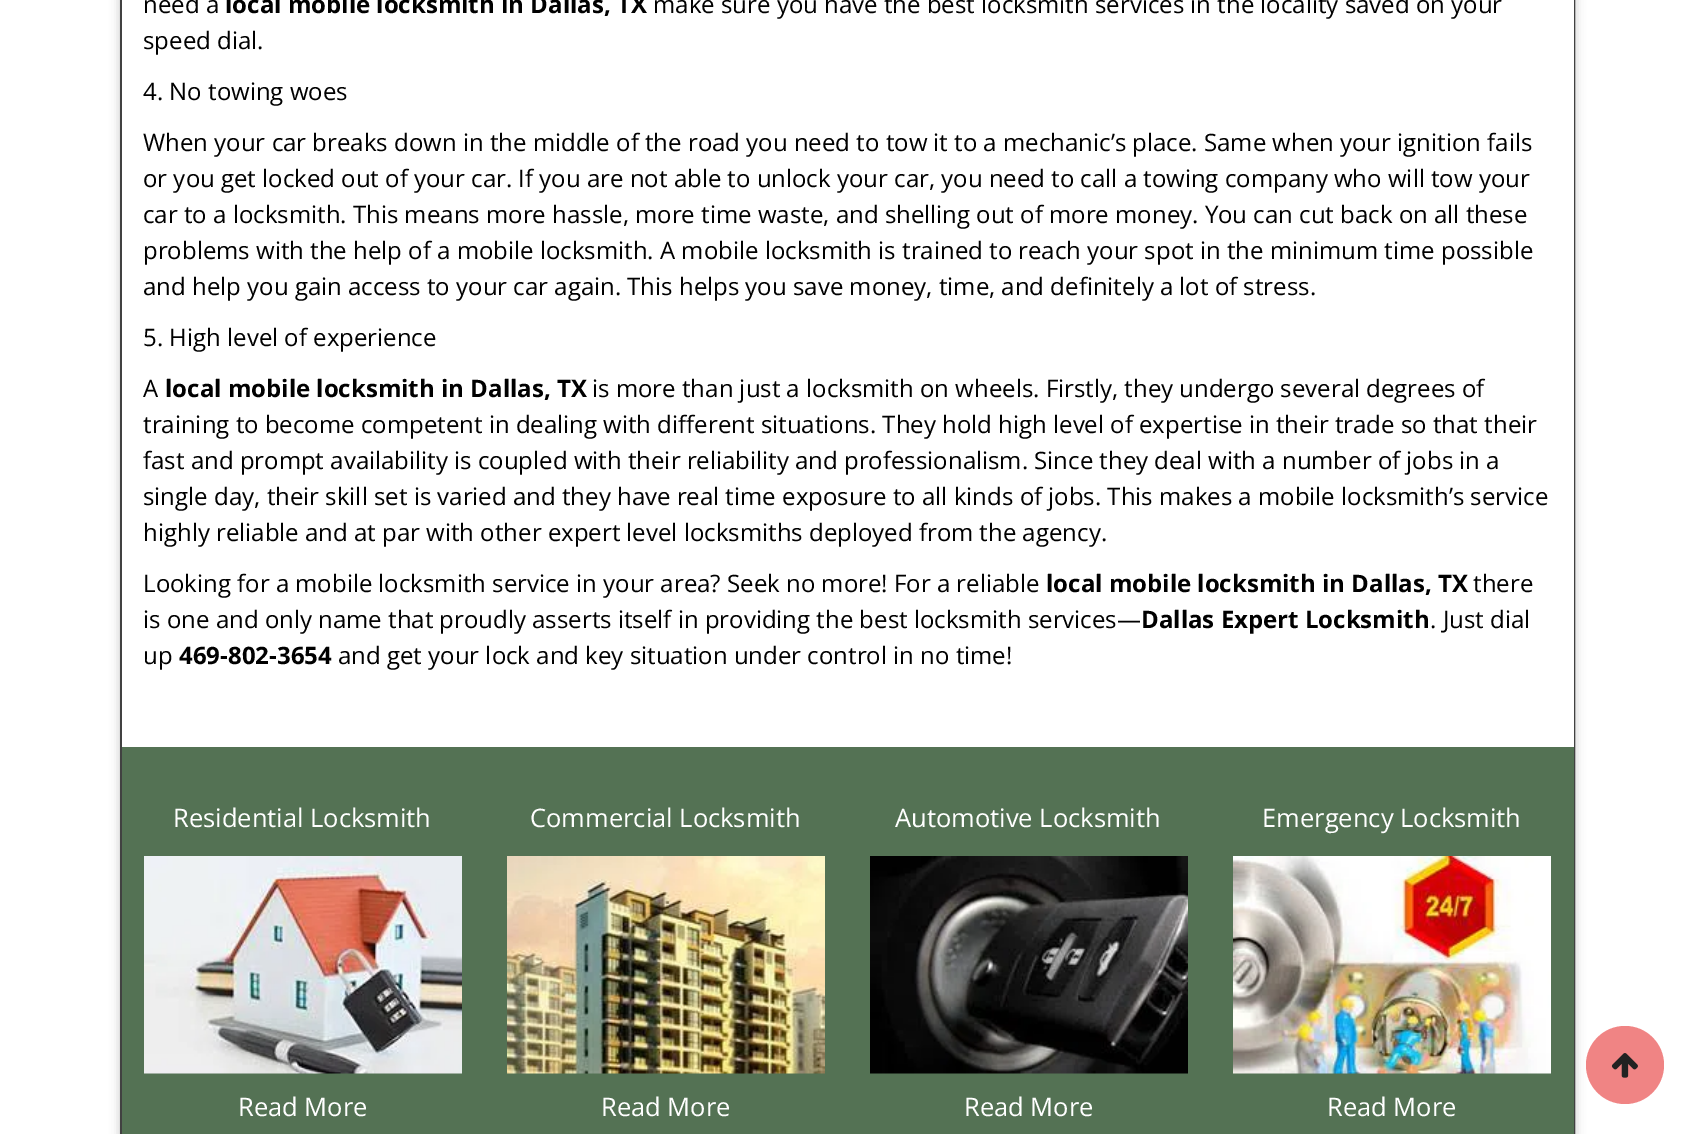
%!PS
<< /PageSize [1693 1134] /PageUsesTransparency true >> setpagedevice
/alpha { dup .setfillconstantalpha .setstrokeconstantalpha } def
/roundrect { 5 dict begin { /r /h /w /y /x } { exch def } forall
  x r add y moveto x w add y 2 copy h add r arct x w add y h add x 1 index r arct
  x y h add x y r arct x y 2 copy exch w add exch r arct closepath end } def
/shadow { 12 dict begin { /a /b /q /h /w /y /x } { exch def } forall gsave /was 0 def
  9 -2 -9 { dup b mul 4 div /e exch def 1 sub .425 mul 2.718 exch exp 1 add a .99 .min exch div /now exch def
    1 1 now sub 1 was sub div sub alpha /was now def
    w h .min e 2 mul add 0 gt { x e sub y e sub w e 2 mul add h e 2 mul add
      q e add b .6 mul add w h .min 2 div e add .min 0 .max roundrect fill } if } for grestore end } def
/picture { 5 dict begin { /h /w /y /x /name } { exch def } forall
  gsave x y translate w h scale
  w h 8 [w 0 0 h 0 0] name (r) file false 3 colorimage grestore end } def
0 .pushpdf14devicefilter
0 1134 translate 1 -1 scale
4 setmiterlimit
1 setgray
0 0 1693 1134 rectfill
0.749 setgray
120 -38 1455 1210 23 5 1 shadow
0.255 setgray
2 setlinewidth
121 -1 1453 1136 rectstroke
1 setgray
122 0 1452 747 rectfill
/OpenSans-Regular [24 0 0 -24 0 0] selectfont
0 setgray
143 13 moveto (need a) show
/OpenSans-Bold [24 0 0 -24 0 0] selectfont
225 13 moveto (local mobile locksmith in Dallas, TX) show
/OpenSans-Regular [24 0 0 -24 0 0] selectfont
653 13 moveto (make sure you have the best locksmith services in the locality saved on your) show
143 49 moveto (speed dial.) show
143 100 moveto (4. No towing woes) show
143 151 moveto (When your car breaks down in the middle of the road you need to tow it to a mechanic’s place. Same when your ignition fails) show
143 187 moveto (or you get locked out of your car. If you are not able to unlock your car, you need to call a towing company who will tow your) show
143 223 moveto (car to a locksmith. This means more hassle, more time waste, and shelling out of more money. You can cut back on all these) show
143 259 moveto (problems with the help of a mobile locksmith. A mobile locksmith is trained to reach your spot in the minimum time possible) show
143 295 moveto (and help you gain access to your car again. This helps you save money, time, and definitely a lot of stress.) show
143 346 moveto (5. High level of experience) show
143 397 moveto (A) show
/OpenSans-Bold [24 0 0 -24 0 0] selectfont
165 397 moveto (local mobile locksmith in Dallas, TX) show
/OpenSans-Regular [24 0 0 -24 0 0] selectfont
592 397 moveto (is more than just a locksmith on wheels. Firstly, they undergo several degrees of) show
143 433 moveto (training to become competent in dealing with different situations. They hold high level of expertise in their trade so that their) show
143 469 moveto (fast and prompt availability is coupled with their reliability and professionalism. Since they deal with a number of jobs in a) show
143 505 moveto (single day, their skill set is varied and they have real time exposure to all kinds of jobs. This makes a mobile locksmith’s service) show
143 541 moveto (highly reliable and at par with other expert level locksmiths deployed from the agency.) show
143 592 moveto (Looking for a mobile locksmith service in your area? Seek no more! For a reliable) show
/OpenSans-Bold [24 0 0 -24 0 0] selectfont
1046 592 moveto (local mobile locksmith in Dallas, TX) show
/OpenSans-Regular [24 0 0 -24 0 0] selectfont
1473 592 moveto (there) show
143 628 moveto (is one and only name that proudly asserts itself in providing the best locksmith services—) show
/OpenSans-Bold [24 0 0 -24 0 0] selectfont
1141 628 moveto (Dallas Expert Locksmith) show
/OpenSans-Regular [24 0 0 -24 0 0] selectfont
1430 628 moveto (. Just dial) show
143 664 moveto (up) show
/OpenSans-Bold [24 0 0 -24 0 0] selectfont
179 664 moveto (469-802-3654) show
/OpenSans-Regular [24 0 0 -24 0 0] selectfont
338 664 moveto (and get your lock and key situation under control in no time!) show
0.329 0.447 0.329 setrgbcolor
122 747 1452 387 rectfill
/OpenSans-Regular [25.5 0 0 -25.5 0 0] selectfont
1 setgray
173 827 moveto (Residential Locksmith) show
(img1.rgb) 144 856 318 218 picture
238 1116 moveto (Read More) show
530 827 moveto (Commercial Locksmith) show
(img2.rgb) 507 856 318 218 picture
601 1116 moveto (Read More) show
895 827 moveto (Automotive Locksmith) show
(img3.rgb) 870 856 318 218 picture
964 1116 moveto (Read More) show
1262 827 moveto (Emergency Locksmith) show
(img4.rgb) 1233 856 318 218 picture
1327 1116 moveto (Read More) show
0.941 0.518 0.518 setrgbcolor
newpath 1625 1065 39 0 360 arc closepath fill
(img5.rgb) 1611 1053 27 25 picture
.poppdf14devicefilter showpage
